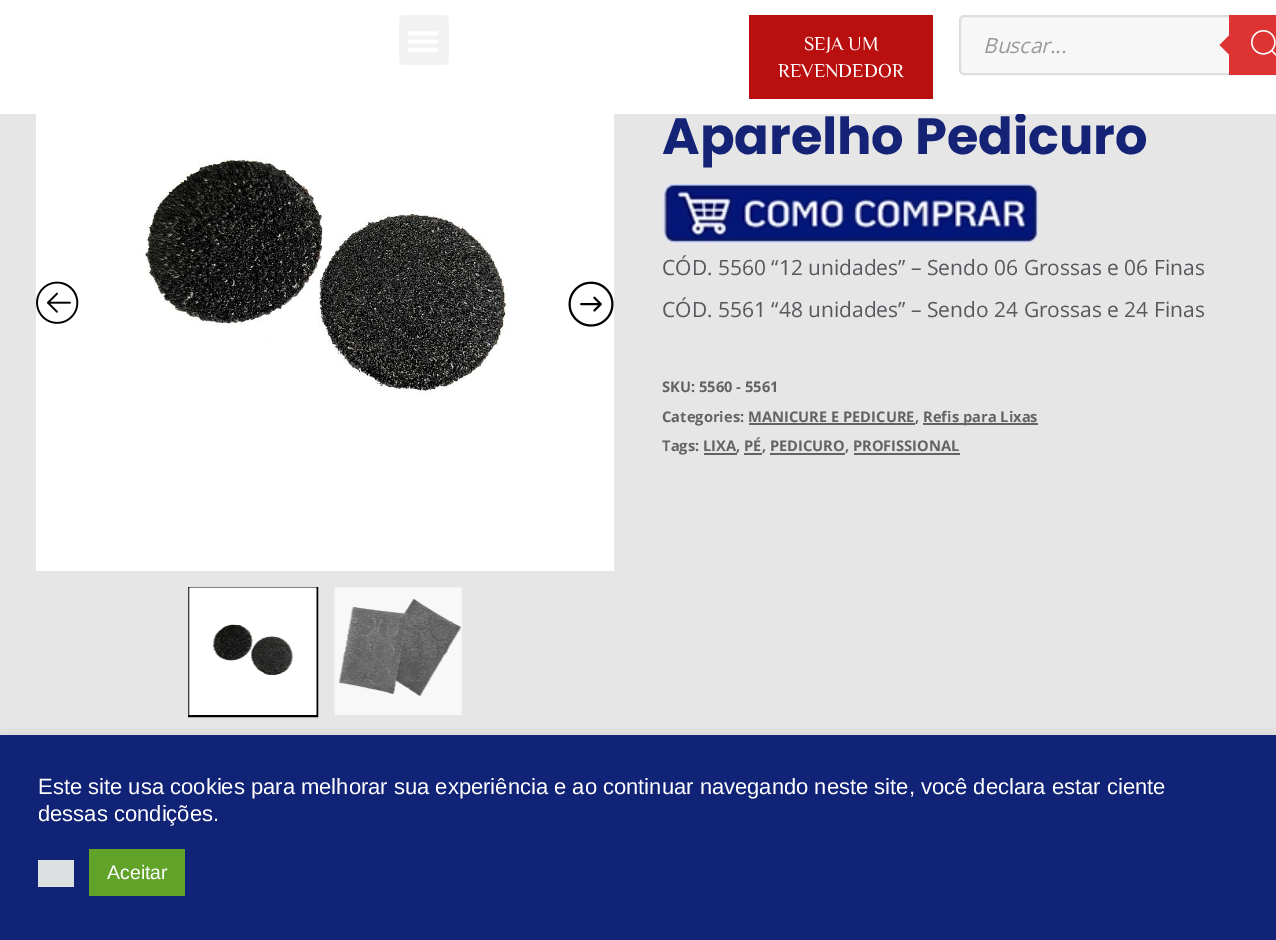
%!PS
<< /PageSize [1276 940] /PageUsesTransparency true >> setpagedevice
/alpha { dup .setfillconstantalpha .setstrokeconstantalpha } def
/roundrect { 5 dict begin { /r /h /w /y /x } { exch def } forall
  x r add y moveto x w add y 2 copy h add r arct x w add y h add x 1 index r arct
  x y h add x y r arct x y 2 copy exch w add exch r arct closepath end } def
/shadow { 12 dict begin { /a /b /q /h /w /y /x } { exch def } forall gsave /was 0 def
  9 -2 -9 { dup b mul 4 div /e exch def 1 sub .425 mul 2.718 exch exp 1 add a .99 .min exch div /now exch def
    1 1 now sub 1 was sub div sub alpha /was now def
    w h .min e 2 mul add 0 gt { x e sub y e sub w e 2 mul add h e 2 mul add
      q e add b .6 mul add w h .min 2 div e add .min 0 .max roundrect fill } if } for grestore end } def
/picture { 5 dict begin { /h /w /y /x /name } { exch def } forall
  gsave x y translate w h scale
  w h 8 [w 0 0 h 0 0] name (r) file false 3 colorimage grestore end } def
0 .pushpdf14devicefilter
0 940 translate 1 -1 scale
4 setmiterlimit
0.902 setgray
0 0 1276 940 rectfill
/Poppins-Bold [51 0 0 -51 0 0] selectfont
0.082 0.137 0.467 setrgbcolor
662 154 moveto (Aparelho Pedicuro) show
1 setgray
0 0 1276 114 rectfill
0.949 setgray
399 15 50 50 5 roundrect fill
(img1.rgb) 408 31 30 21 picture
0.729 0.059 0.059 setrgbcolor
749 15 184 84 rectfill
/Philosopher-Regular [19.5 0 0 -19.5 0 0] selectfont
1 setgray
804 50 moveto (SEJA UM) show
778 77 moveto (REVENDEDOR) show
0.969 setgray
960 16 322 58 4 roundrect gsave fill grestore
0.867 setgray
2 setlinewidth
stroke
/OpenSans-Italic [21 0 0 -21 0 0] selectfont
0.6 setgray
983 53 moveto (Buscar...) show
0.867 0.2 0.2 setrgbcolor
1229 15 47 60 rectfill
newpath 1231.5 33 moveto 1231.5 57 lineto 1219.5 45 lineto closepath fill
(img2.rgb) 1251 29 25 27 picture
(img3.rgb) 36 114 578 457 picture
(img4.rgb) 36 281 43 43 picture
(img5.rgb) 568 281 46 46 picture
0 setgray
189 588 128 128 rectstroke
(img6.rgb) 188 587 129 128 picture
(img7.rgb) 334 587 129 128 picture
(img8.rgb) 663 184 375 59 picture
/OpenSans-Regular [21 0 0 -21 0 0] selectfont
0.341 0.341 0.365 setrgbcolor
662 275 moveto (CÓD. 5560 “12 unidades” – Sendo 06 Grossas e 06 Finas) show
662 317 moveto (CÓD. 5561 “48 unidades” – Sendo 24 Grossas e 24 Finas) show
/OpenSans-Bold [14.7 0 0 -14.7 0 0] selectfont
0.388 setgray
662 392 moveto (SKU: 5560 - 5561) show
662 422 moveto (Categories: MANICURE E PEDICURE,) show
923 423 115 2 rectfill
923 422 moveto (Refis para Lixas) show
749 423 166 2 rectfill
662 451 moveto (Tags: LIXA, PÉ, PEDICURO, PROFISSIONAL) show
704 453 33 2 rectfill
744 453 18 2 rectfill
770 453 75 2 rectfill
854 453 106 2 rectfill
0.675 0.671 0.671 setrgbcolor
0 734 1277 205 0 7.5 0.3 shadow
0.067 0.137 0.467 setrgbcolor
0 735 1276 205 rectfill
/LiberationSans-Regular [22 0 0 -22 0 0] selectfont
1 setgray
38 794 moveto (Este site usa cookies para melhorar sua experiência e ao continuar navegando neste site, você declara estar ciente) show
38 821 moveto (dessas condições.) show
0.871 0.875 0.878 setrgbcolor
38 860 36 27 rectfill
0.38 0.635 0.161 setrgbcolor
89 849 96 47 rectfill
/LiberationSans-Regular [19.5 0 0 -19.5 0 0] selectfont
1 setgray
107 879 moveto (Aceitar) show
.poppdf14devicefilter showpage
